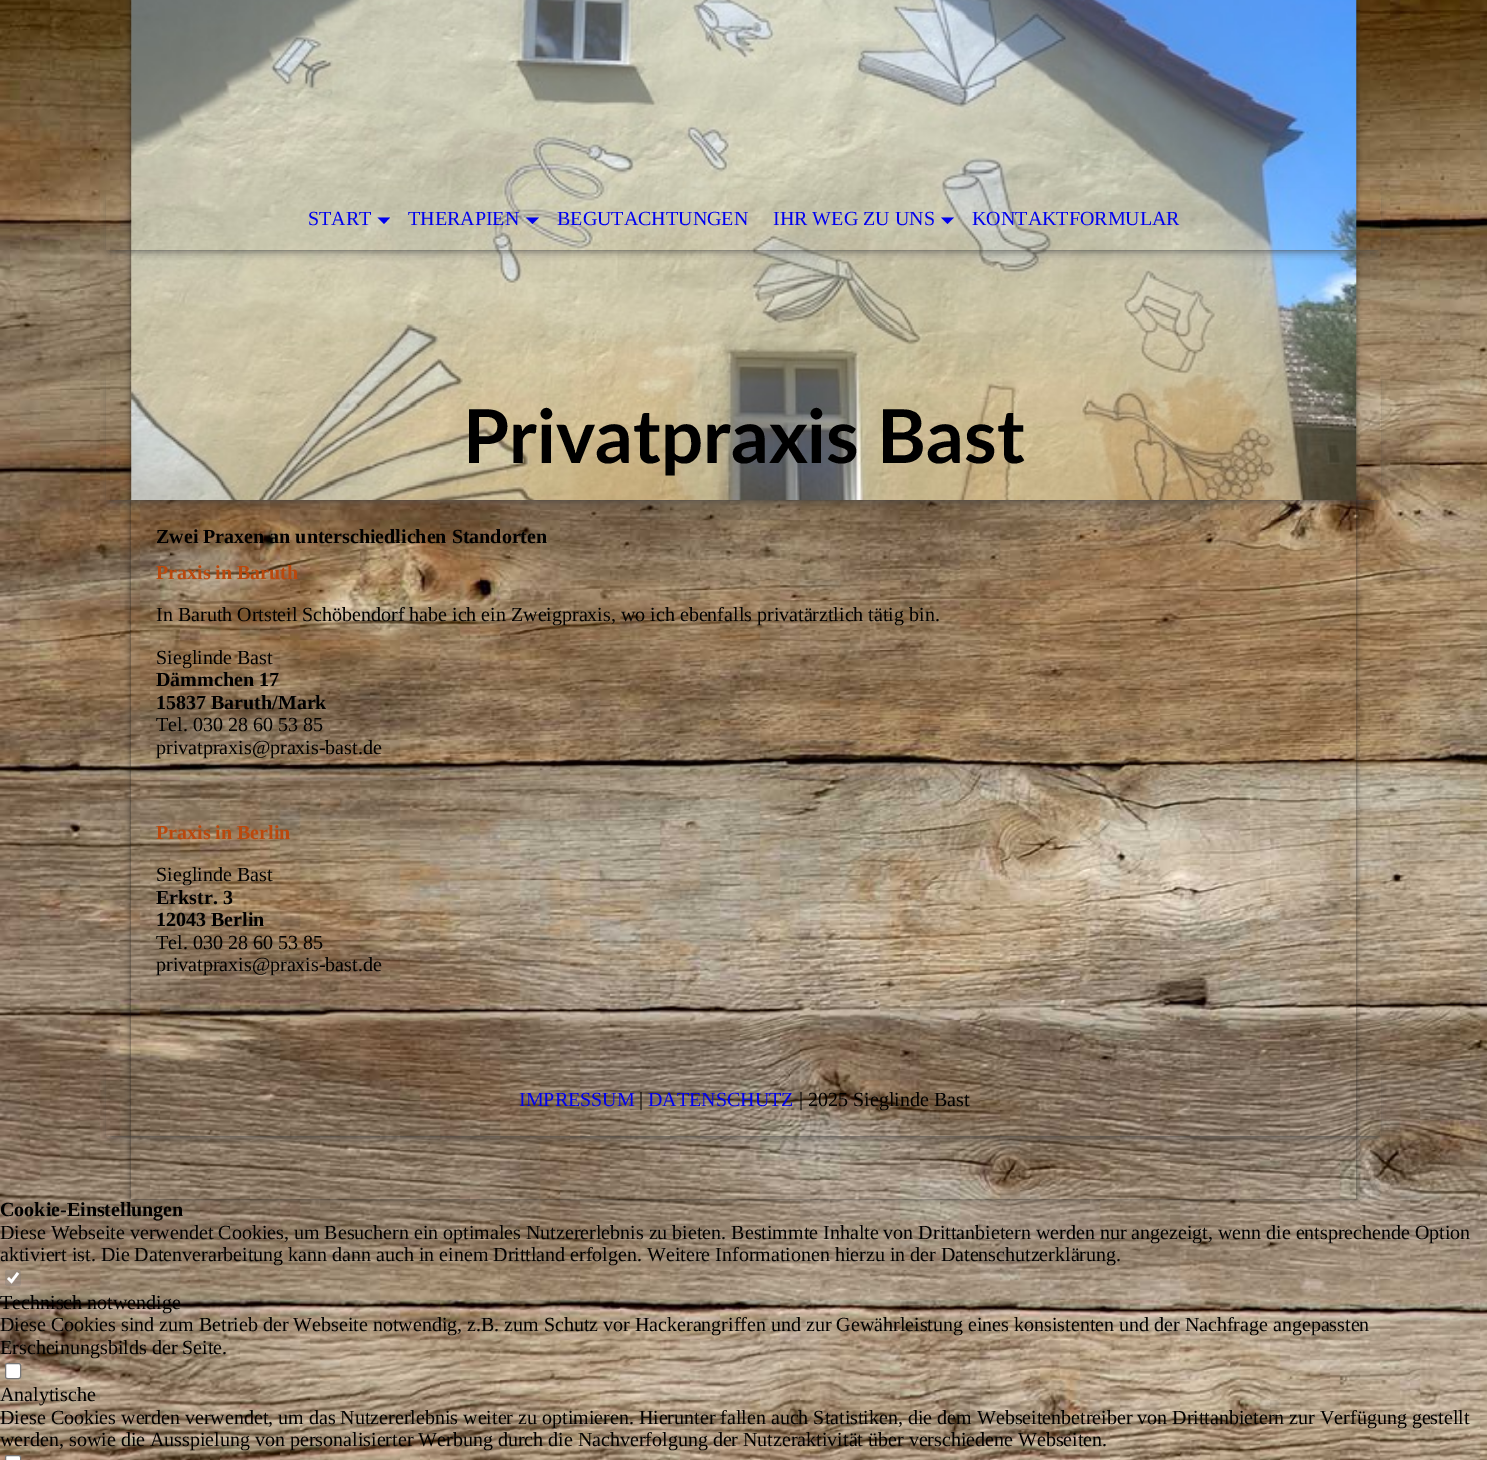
%!PS
<< /PageSize [1487 1460] /PageUsesTransparency true >> setpagedevice
/alpha { dup .setfillconstantalpha .setstrokeconstantalpha } def
/roundrect { 5 dict begin { /r /h /w /y /x } { exch def } forall
  x r add y moveto x w add y 2 copy h add r arct x w add y h add x 1 index r arct
  x y h add x y r arct x y 2 copy exch w add exch r arct closepath end } def
/shadow { 12 dict begin { /a /b /q /h /w /y /x } { exch def } forall gsave /was 0 def
  9 -2 -9 { dup b mul 4 div /e exch def 1 sub .425 mul 2.718 exch exp 1 add a .99 .min exch div /now exch def
    1 1 now sub 1 was sub div sub alpha /was now def
    w h .min e 2 mul add 0 gt { x e sub y e sub w e 2 mul add h e 2 mul add
      q e add b .6 mul add w h .min 2 div e add .min 0 .max roundrect fill } if } for grestore end } def
/picture { 5 dict begin { /h /w /y /x /name } { exch def } forall
  gsave x y translate w h scale
  w h 8 [w 0 0 h 0 0] name (r) file false 3 colorimage grestore end } def
0 .pushpdf14devicefilter
0 1460 translate 1 -1 scale
4 setmiterlimit
1 setgray
0 0 1487 1460 rectfill
(img1.rgb) 0 0 1487 1460 picture
gsave
newpath 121 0 moveto 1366 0 lineto 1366 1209 lineto 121 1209 lineto closepath 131 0 moveto 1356 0 lineto 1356 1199 lineto 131 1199 lineto closepath eoclip newpath
0.078 setgray
131 0 1225 1199 0 3 0.7 shadow
grestore
(img2.rgb) 131 0 1226 500 picture
gsave
newpath 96 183 moveto 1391 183 lineto 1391 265 lineto 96 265 lineto closepath 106 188 moveto 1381 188 lineto 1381 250 lineto 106 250 lineto closepath eoclip newpath
0.267 setgray
111 198 1265 52 0 4.5 1 shadow
grestore
/LiberationSerif-Regular [20 0 0 -20 0 0] selectfont
0 0 0.933 setrgbcolor
308 225 moveto (START) show
newpath 377.5 217.5 moveto 390 217.5 lineto 384 224 lineto closepath fill
408 225 moveto (THERAPIEN) show
newpath 526 217.5 moveto 539 217.5 lineto 532.5 224 lineto closepath fill
557 225 moveto (BEGUTACHTUNGEN) show
773 225 moveto (IHR WEG ZU UNS) show
newpath 941 217.5 moveto 954 217.5 lineto 947.5 224 lineto closepath fill
972 225 moveto (KONTAKTFORMULAR) show
gsave
newpath 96 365 moveto 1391 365 lineto 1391 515 lineto 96 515 lineto closepath 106 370 moveto 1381 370 lineto 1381 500 lineto 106 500 lineto closepath eoclip newpath
0.267 setgray
111 380 1265 120 0 4.5 1 shadow
grestore
/Lato-Bold [74.5 0 0 -74.5 0 0] selectfont
0 setgray
463 463 moveto (Privatpraxis Bast) show
/LiberationSerif-Bold [20 0 0 -20 0 0] selectfont
156 543 moveto (Zwei Praxen an unterschiedlichen Standorten) show
0.733 0.282 0.047 setrgbcolor
156 579 moveto (Praxis in Baruth) show
/LiberationSerif-Regular [20 0 0 -20 0 0] selectfont
0 setgray
156 621 moveto (In Baruth Ortsteil Schöbendorf habe ich ein Zweigpraxis, wo ich ebenfalls privatärztlich tätig bin.) show
156 664 moveto (Sieglinde Bast) show
/LiberationSerif-Bold [20 0 0 -20 0 0] selectfont
156 686 moveto (Dämmchen 17) show
156 709 moveto (15837 Baruth/Mark) show
/LiberationSerif-Regular [20 0 0 -20 0 0] selectfont
156 731 moveto (Tel. 030 28 60 53 85) show
156 754 moveto (privatpraxis@praxis-bast.de) show
/LiberationSerif-Bold [20 0 0 -20 0 0] selectfont
0.733 0.282 0.047 setrgbcolor
156 839 moveto (Praxis in Berlin) show
/LiberationSerif-Regular [20 0 0 -20 0 0] selectfont
0 setgray
156 881 moveto (Sieglinde Bast) show
/LiberationSerif-Bold [20 0 0 -20 0 0] selectfont
156 904 moveto (Erkstr. 3) show
156 926 moveto (12043 Berlin) show
/LiberationSerif-Regular [20 0 0 -20 0 0] selectfont
156 949 moveto (Tel. 030 28 60 53 85) show
156 971 moveto (privatpraxis@praxis-bast.de) show
gsave
newpath 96 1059 moveto 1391 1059 lineto 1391 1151 lineto 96 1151 lineto closepath 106 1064 moveto 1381 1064 lineto 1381 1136 lineto 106 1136 lineto closepath eoclip newpath
0.267 setgray
111 1074 1265 62 0 4.5 1 shadow
grestore
0 0 0.933 setrgbcolor
519 1106 moveto (IMPRESSUM) show
0 setgray
639 1106 moveto (|) show
0 0 0.933 setrgbcolor
648 1106 moveto (DATENSCHUTZ) show
0 setgray
799 1106 moveto (| 2025 Sieglinde Bast) show
/LiberationSerif-Bold [20 0 0 -20 0 0] selectfont
0 1216 moveto (Cookie-Einstellungen) show
/LiberationSerif-Regular [20 0 0 -20 0 0] selectfont
0 1239 moveto (Diese Webseite verwendet Cookies, um Besuchern ein optimales Nutzererlebnis zu bieten. Bestimmte Inhalte von Drittanbietern werden nur angezeigt, wenn die entsprechende Option) show
0 1261 moveto (aktiviert ist. Die Datenverarbeitung kann dann auch in einem Drittland erfolgen. Weitere Informationen hierzu in der Datenschutzerklärung.) show
0.3 alpha
0.463 setgray
5 1270 16 16 2.5 roundrect fill
1 alpha
1 setgray
2.6 setlinewidth
newpath 8 1278 moveto 11.5 1281.5 lineto 18 1273 lineto stroke
0 setgray
0 1309 moveto (Technisch notwendige) show
0 1331 moveto (Diese Cookies sind zum Betrieb der Webseite notwendig, z.B. zum Schutz vor Hackerangriffen und zur Gewährleistung eines konsistenten und der Nachfrage angepassten) show
0 1354 moveto (Erscheinungsbilds der Seite.) show
1 setgray
5.5 1363.5 15 15 2 roundrect gsave fill grestore
0.463 setgray
1 setlinewidth
stroke
0 setgray
0 1401 moveto (Analytische) show
0 1424 moveto (Diese Cookies werden verwendet, um das Nutzererlebnis weiter zu optimieren. Hierunter fallen auch Statistiken, die dem Webseitenbetreiber von Drittanbietern zur Verfügung gestellt) show
0 1446 moveto (werden, sowie die Ausspielung von personalisierter Werbung durch die Nachverfolgung der Nutzeraktivität über verschiedene Webseiten.) show
1 setgray
5.5 1455.5 15 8 2 roundrect gsave fill grestore
0.463 setgray
stroke
.poppdf14devicefilter showpage
